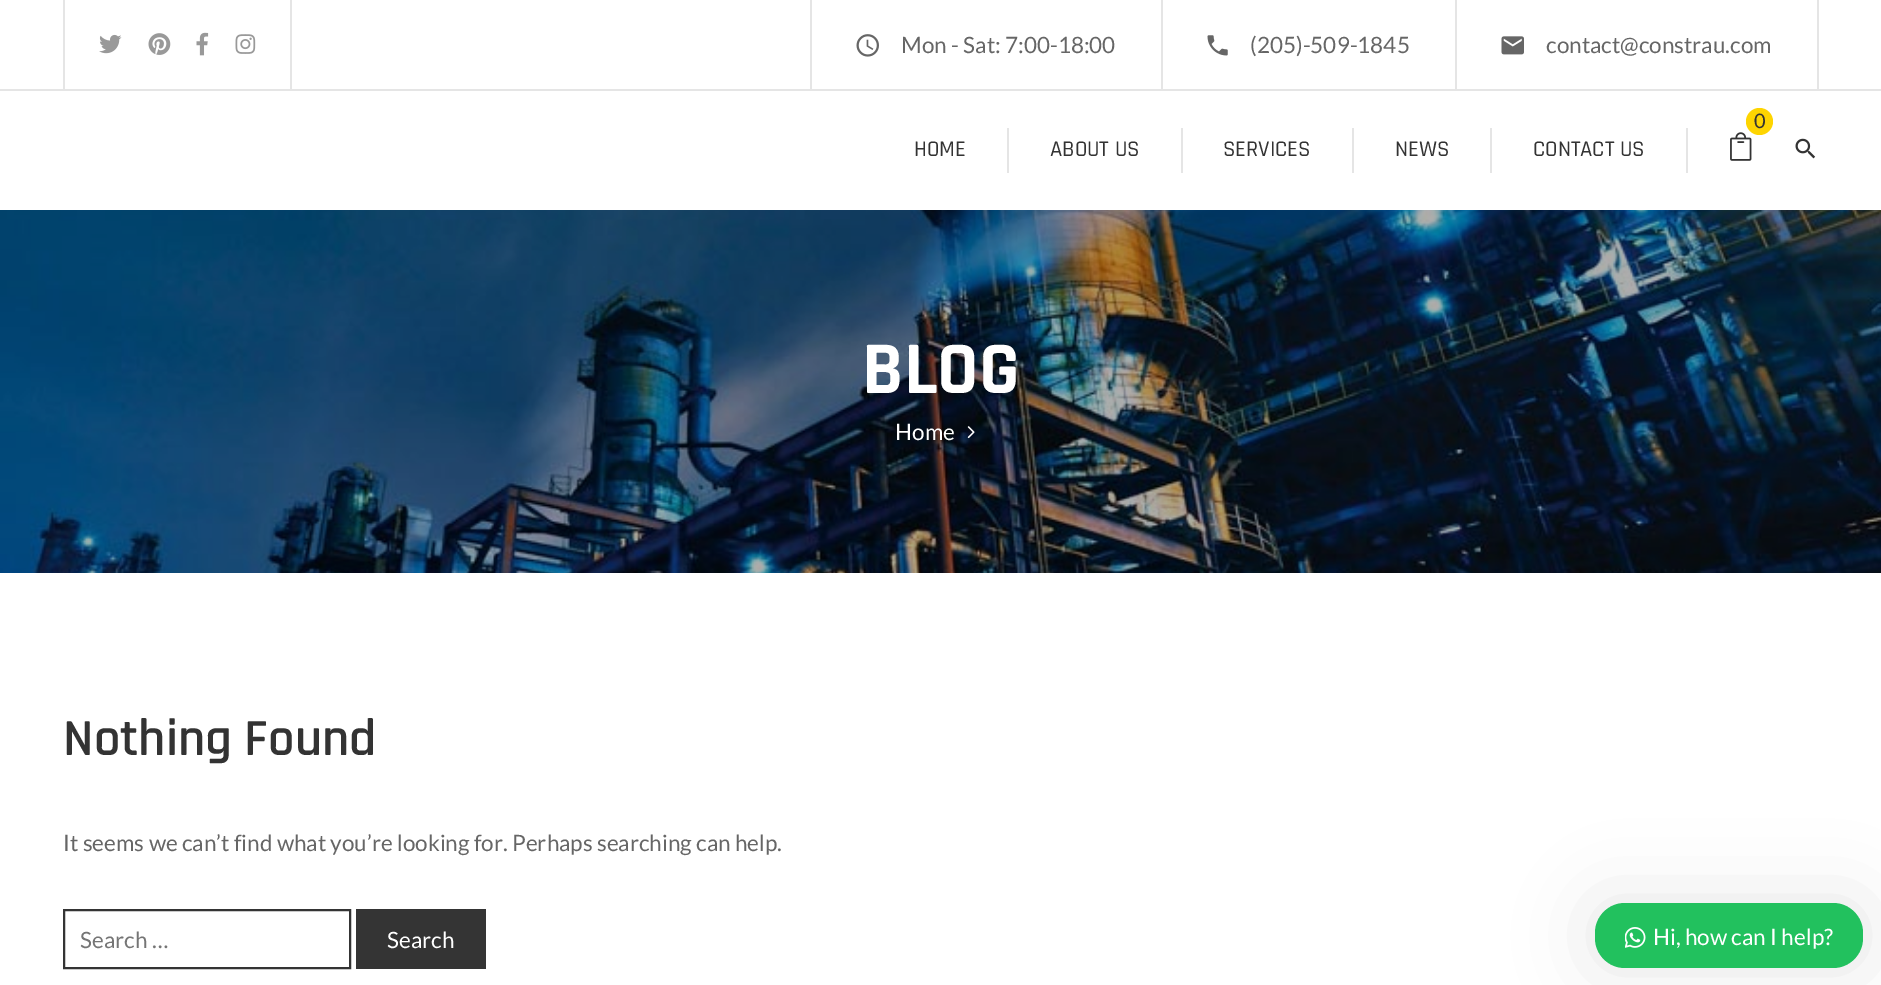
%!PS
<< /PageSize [1881 985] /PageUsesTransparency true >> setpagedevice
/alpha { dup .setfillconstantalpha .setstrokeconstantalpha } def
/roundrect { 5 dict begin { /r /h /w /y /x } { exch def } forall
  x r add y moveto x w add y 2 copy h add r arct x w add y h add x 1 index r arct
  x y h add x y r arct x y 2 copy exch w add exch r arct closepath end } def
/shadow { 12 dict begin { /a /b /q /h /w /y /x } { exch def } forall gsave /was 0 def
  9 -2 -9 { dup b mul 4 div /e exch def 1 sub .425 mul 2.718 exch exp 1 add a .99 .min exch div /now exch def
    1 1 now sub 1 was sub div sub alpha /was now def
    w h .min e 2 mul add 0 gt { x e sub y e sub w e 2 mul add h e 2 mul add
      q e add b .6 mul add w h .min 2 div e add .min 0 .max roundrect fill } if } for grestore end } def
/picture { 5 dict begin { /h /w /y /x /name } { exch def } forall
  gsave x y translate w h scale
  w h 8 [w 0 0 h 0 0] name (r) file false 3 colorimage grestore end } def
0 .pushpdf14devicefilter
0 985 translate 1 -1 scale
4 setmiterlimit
1 setgray
0 0 1881 985 rectfill
0.898 setgray
0 89 1881 2 rectfill
290 0 2 89 rectfill
63 0 2 89 rectfill
(img1.rgb) 99 34 23 20 picture
(img2.rgb) 148 33 23 22 picture
(img3.rgb) 196 32 13 24 picture
(img4.rgb) 235 34 21 20 picture
810 0 2 89 rectfill
(img5.rgb) 856 34 23 23 picture
/Lato-Regular [22.5 0 0 -22.5 0 0] selectfont
0.4 setgray
901 53 moveto (Mon - Sat: 7:00-18:00) show
0.898 setgray
1455 0 2 89 rectfill
1161 0 2 89 rectfill
(img6.rgb) 1207 35 21 21 picture
0.4 setgray
1250 53 moveto (\(205\)-509-1845) show
0.898 setgray
1817 0 2 89 rectfill
(img7.rgb) 1501 36 23 19 picture
0.4 setgray
1546 53 moveto (contact@constrau.com) show
(img8.rgb) 1730 132 22 29 picture
0.996 0.835 0.004 setrgbcolor
newpath 1759.5 121.5 13.5 0 360 arc closepath fill
/Lato-Regular [20 0 0 -20 0 0] selectfont
0.2 setgray
1754 128 moveto (0) show
/Rajdhani-Medium [22.5 0 0 -22.5 0 0] selectfont
914 156 moveto (HOME) show
0.898 setgray
1007 128 2 45 rectfill
0.2 setgray
1050 156 moveto (ABOUT US) show
0.898 setgray
1181 128 2 45 rectfill
0.2 setgray
1223 156 moveto (SERVICES) show
0.898 setgray
1352 128 2 45 rectfill
0.2 setgray
1395 156 moveto (NEWS) show
0.898 setgray
1490 128 2 45 rectfill
0.2 setgray
1533 156 moveto (CONTACT US) show
0.898 setgray
1686 128 2 45 rectfill
(img9.rgb) 1795 138 21 21 picture
(img10.rgb) 0 210 1881 363 picture
/Rajdhani-Bold [75 0 0 -75 0 0] selectfont
1 setgray
862 393 moveto (BLOG) show
/Lato-Regular [22.5 0 0 -22.5 0 0] selectfont
895 440 moveto (Home) show
(img11.rgb) 967 426 8 13 picture
/Rajdhani-SemiBold [52.5 0 0 -52.5 0 0] selectfont
0.2 setgray
63 755 moveto (Nothing Found) show
/Lato-Regular [22.5 0 0 -22.5 0 0] selectfont
0.4 setgray
63 851 moveto (It seems we can’t find what you’re looking for. Perhaps searching can help.) show
0.204 setgray
2 setlinewidth
64 910 286 58 rectstroke
0.459 setgray
80 948 moveto (Search …) show
0.204 setgray
356 909 130 60 rectfill
1 setgray
387 948 moveto (Search) show
0 setgray
1595 903 268 65 30 37.5 0.1 shadow
0.133 0.757 0.369 setrgbcolor
1595 903 268 65 30 roundrect fill
(img12.rgb) 1625 927 21 21 picture
1 setgray
1653 945 moveto (Hi, how can I help?) show
.poppdf14devicefilter showpage
